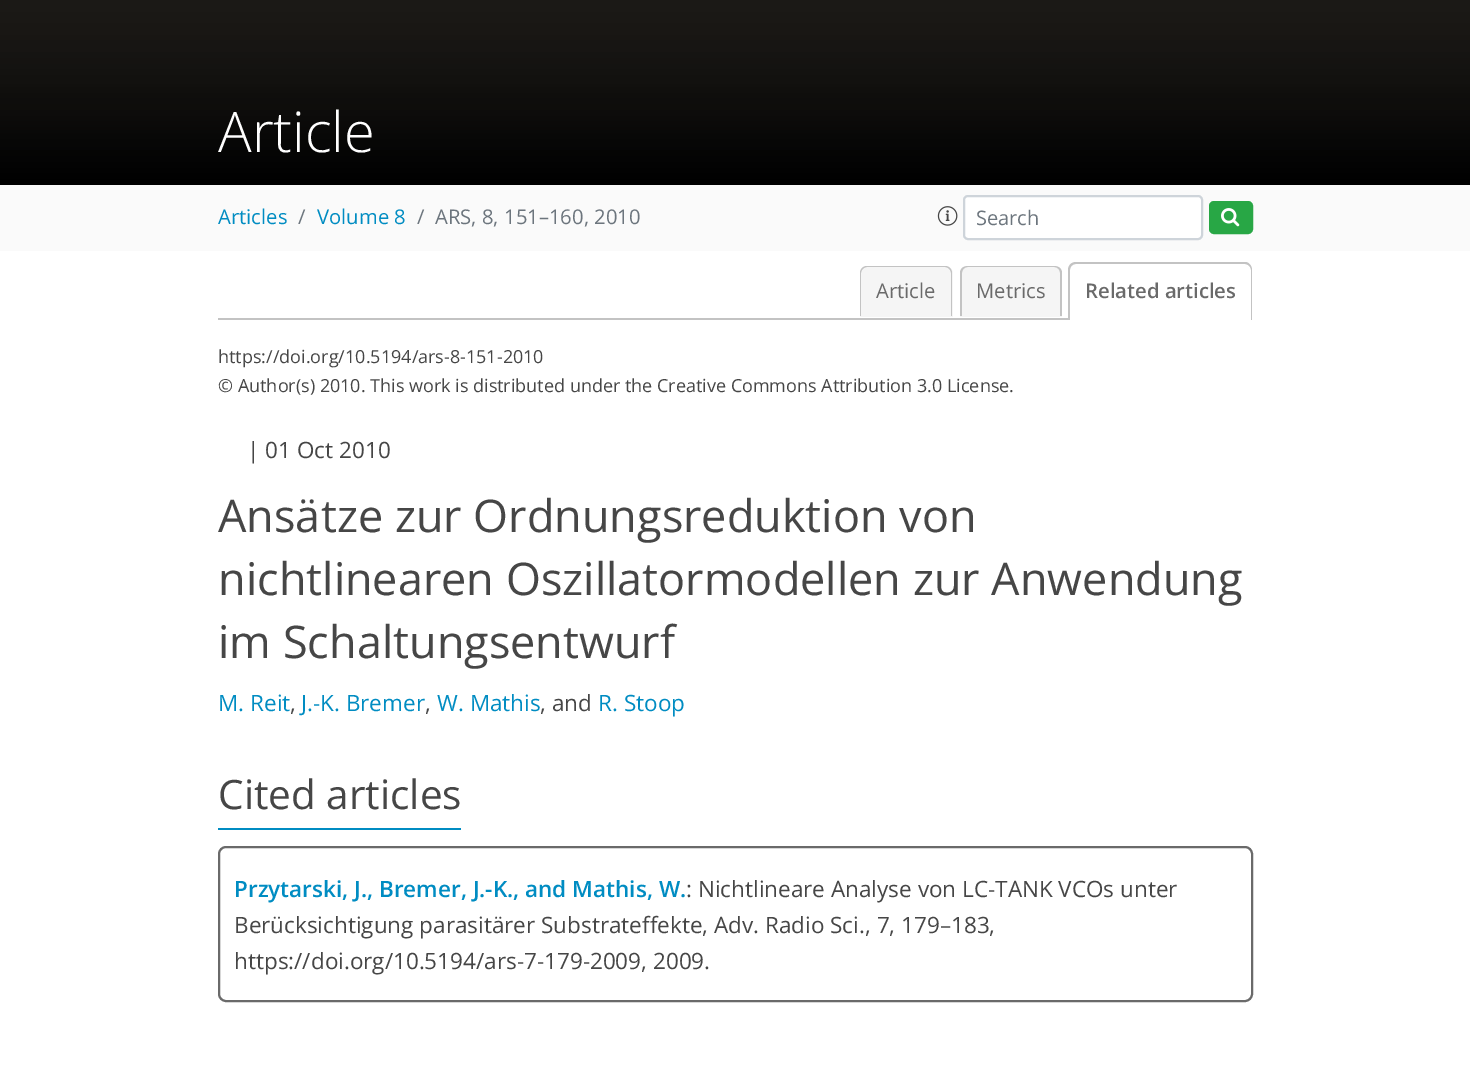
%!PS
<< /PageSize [1470 1083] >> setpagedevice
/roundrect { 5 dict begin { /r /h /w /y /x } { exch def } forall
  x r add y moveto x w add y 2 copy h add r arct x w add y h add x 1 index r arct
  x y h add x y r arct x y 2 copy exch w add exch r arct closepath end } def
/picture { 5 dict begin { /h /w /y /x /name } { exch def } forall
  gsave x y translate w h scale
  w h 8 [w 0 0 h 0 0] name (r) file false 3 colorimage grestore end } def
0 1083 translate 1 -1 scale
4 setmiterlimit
1 setgray
0 0 1470 1083 rectfill
gsave newpath 0 0 moveto 1470 0 lineto 1470 185 lineto 0 185 lineto closepath clip newpath
<< /ShadingType 2 /ColorSpace /DeviceRGB /Coords [735 185 735 -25] /Extend [true true] /Function << /FunctionType 3 /Domain [0 1] /Functions [<< /FunctionType 2 /Domain [0 1] /C0 [0 0 0] /C1 [0.027 0.027 0.024] /N 1 >> << /FunctionType 2 /Domain [0 1] /C0 [0.027 0.027 0.024] /C1 [0.051 0.047 0.043] /N 1 >> << /FunctionType 2 /Domain [0 1] /C0 [0.051 0.047 0.043] /C1 [0.067 0.063 0.055] /N 1 >> << /FunctionType 2 /Domain [0 1] /C0 [0.067 0.063 0.055] /C1 [0.078 0.075 0.067] /N 1 >> << /FunctionType 2 /Domain [0 1] /C0 [0.078 0.075 0.067] /C1 [0.09 0.082 0.075] /N 1 >> << /FunctionType 2 /Domain [0 1] /C0 [0.09 0.082 0.075] /C1 [0.098 0.09 0.078] /N 1 >> << /FunctionType 2 /Domain [0 1] /C0 [0.098 0.09 0.078] /C1 [0.102 0.094 0.082] /N 1 >> << /FunctionType 2 /Domain [0 1] /C0 [0.102 0.094 0.082] /C1 [0.106 0.098 0.086] /N 1 >> << /FunctionType 2 /Domain [0 1] /C0 [0.106 0.098 0.086] /C1 [0.106 0.098 0.09] /N 1 >> << /FunctionType 2 /Domain [0 1] /C0 [0.106 0.098 0.09] /C1 [0.11 0.102 0.09] /N 1 >> << /FunctionType 2 /Domain [0 1] /C0 [0.11 0.102 0.09] /C1 [0.11 0.102 0.09] /N 1 >>] /Bounds [0.19 0.34 0.47 0.56 0.65 0.73 0.8 0.86 0.91 0.95] /Encode [0 1 0 1 0 1 0 1 0 1 0 1 0 1 0 1 0 1 0 1 0 1] >> >> shfill grestore
/OpenSans-Light [56 0 0 -56 0 0] selectfont
218 152 moveto (Article) show
0.98 setgray
0 185 1470 66 rectfill
/OpenSans-Regular [20.25 0 0 -20.25 0 0] selectfont
0 0.549 0.761 setrgbcolor
218 224 moveto (Articles) show
0.424 0.459 0.49 setrgbcolor
298 224 moveto (/) show
0 0.549 0.761 setrgbcolor
317 224 moveto (Volume 8) show
0.424 0.459 0.49 setrgbcolor
417 224 moveto (/) show
435 224 moveto (ARS, 8, 151–160, 2010) show
(img1.rgb) 937 206 21 20 picture
1 setgray
964 196 238 43 4 roundrect gsave fill grestore
0.808 0.831 0.855 setrgbcolor
2 setlinewidth
stroke
/OpenSans-Regular [20 0 0 -20 0 0] selectfont
0.424 0.459 0.49 setrgbcolor
976 225 moveto (Search) show
0.157 0.655 0.271 setrgbcolor
1210 202 42 31 4 roundrect gsave fill grestore
stroke
(img2.rgb) 1221 208 19 19 picture
0.765 setgray
218 318 850 2 rectfill
0.961 setgray
newpath 868 266 moveto 945 266 lineto 949.5 266 953 269.5 953 274 curveto 953 317 lineto 860 317 lineto 860 274 lineto 860 269.5 863.5 266 868 266 curveto closepath fill
0.765 setgray
newpath 867 266 moveto 945 266 lineto 949 266 952 269 952 273 curveto 952 316 lineto 860 316 lineto 860 273 lineto 860 269 863 266 867 266 curveto closepath 867 267 moveto 945 267 lineto 948 267 951 270 951 273 curveto 951 316 lineto 861 316 lineto 861 273 lineto 861 270 864 267 867 267 curveto closepath eofill
/OpenSans-Regular [20.25 0 0 -20.25 0 0] selectfont
0.416 setgray
876 298 moveto (Article) show
0.961 setgray
newpath 968 266 moveto 1054 266 lineto 1058.5 266 1062 269.5 1062 274 curveto 1062 317 lineto 960 317 lineto 960 274 lineto 960 269.5 963.5 266 968 266 curveto closepath fill
0.765 setgray
newpath 968 266 moveto 1054 266 lineto 1059 266 1062 269 1062 273 curveto 1062 316 lineto 960 316 lineto 960 273 lineto 960 269 963 266 968 266 curveto closepath 968 267 moveto 1054 267 lineto 1058 267 1060 270 1060 273 curveto 1060 316 lineto 962 316 lineto 962 273 lineto 962 270 964 267 968 267 curveto closepath eofill
0.416 setgray
976 298 moveto (Metrics) show
0.765 setgray
newpath 1076 262 moveto 1245 262 lineto 1249 262 1252 266 1252 270 curveto 1252 320 lineto 1068 320 lineto 1068 270 lineto 1068 266 1071 262 1076 262 curveto closepath 1076 264 moveto 1245 264 lineto 1248 264 1251 267 1251 270 curveto 1251 320 lineto 1070 320 lineto 1070 270 lineto 1070 267 1072 264 1076 264 curveto closepath eofill
/OpenSans-SemiBold [20.25 0 0 -20.25 0 0] selectfont
0.416 setgray
1085 298 moveto (Related articles) show
/OpenSans-Regular [18 0 0 -18 0 0] selectfont
0.275 setgray
218 363 moveto (https://doi.org/10.5194/ars-8-151-2010) show
218 392 moveto (© Author\(s\) 2010. This work is distributed under the Creative Commons Attribution 3.0 License.) show
/OpenSans-Regular [22.5 0 0 -22.5 0 0] selectfont
247 458 moveto (| 01 Oct 2010) show
/OpenSans-Regular [45 0 0 -45 0 0] selectfont
218 532 moveto (Ansätze zur Ordnungsreduktion von) show
218 595 moveto (nichtlinearen Oszillatormodellen zur Anwendung) show
218 658 moveto (im Schaltungsentwurf) show
/OpenSans-Regular [22.5 0 0 -22.5 0 0] selectfont
0 0.549 0.761 setrgbcolor
218 711 moveto (M. Reit) show
0.275 setgray
290 711 moveto (,) show
0 0.549 0.761 setrgbcolor
301 711 moveto (J.-K. Bremer) show
0.275 setgray
425 711 moveto (,) show
0 0.549 0.761 setrgbcolor
437 711 moveto (W. Mathis) show
0.275 setgray
540 711 moveto (, and) show
0 0.549 0.761 setrgbcolor
598 711 moveto (R. Stoop) show
218 828 243 2 rectfill
/OpenSans-Regular [40.5 0 0 -40.5 0 0] selectfont
0.275 setgray
218 809 moveto (Cited articles) show
0.416 setgray
219 847 1033 154 7 roundrect stroke
/OpenSans-SemiBold [22.5 0 0 -22.5 0 0] selectfont
0 0.549 0.761 setrgbcolor
234 897 moveto (Przytarski, J., Bremer, J.-K., and Mathis, W.) show
/OpenSans-Regular [22.5 0 0 -22.5 0 0] selectfont
0.275 setgray
686 897 moveto (: Nichtlineare Analyse von LC-TANK VCOs unter) show
234 933 moveto (Berücksichtigung parasitärer Substrateffekte, Adv. Radio Sci., 7, 179–183,) show
234 969 moveto (https://doi.org/10.5194/ars-7-179-2009, 2009.) show
showpage
